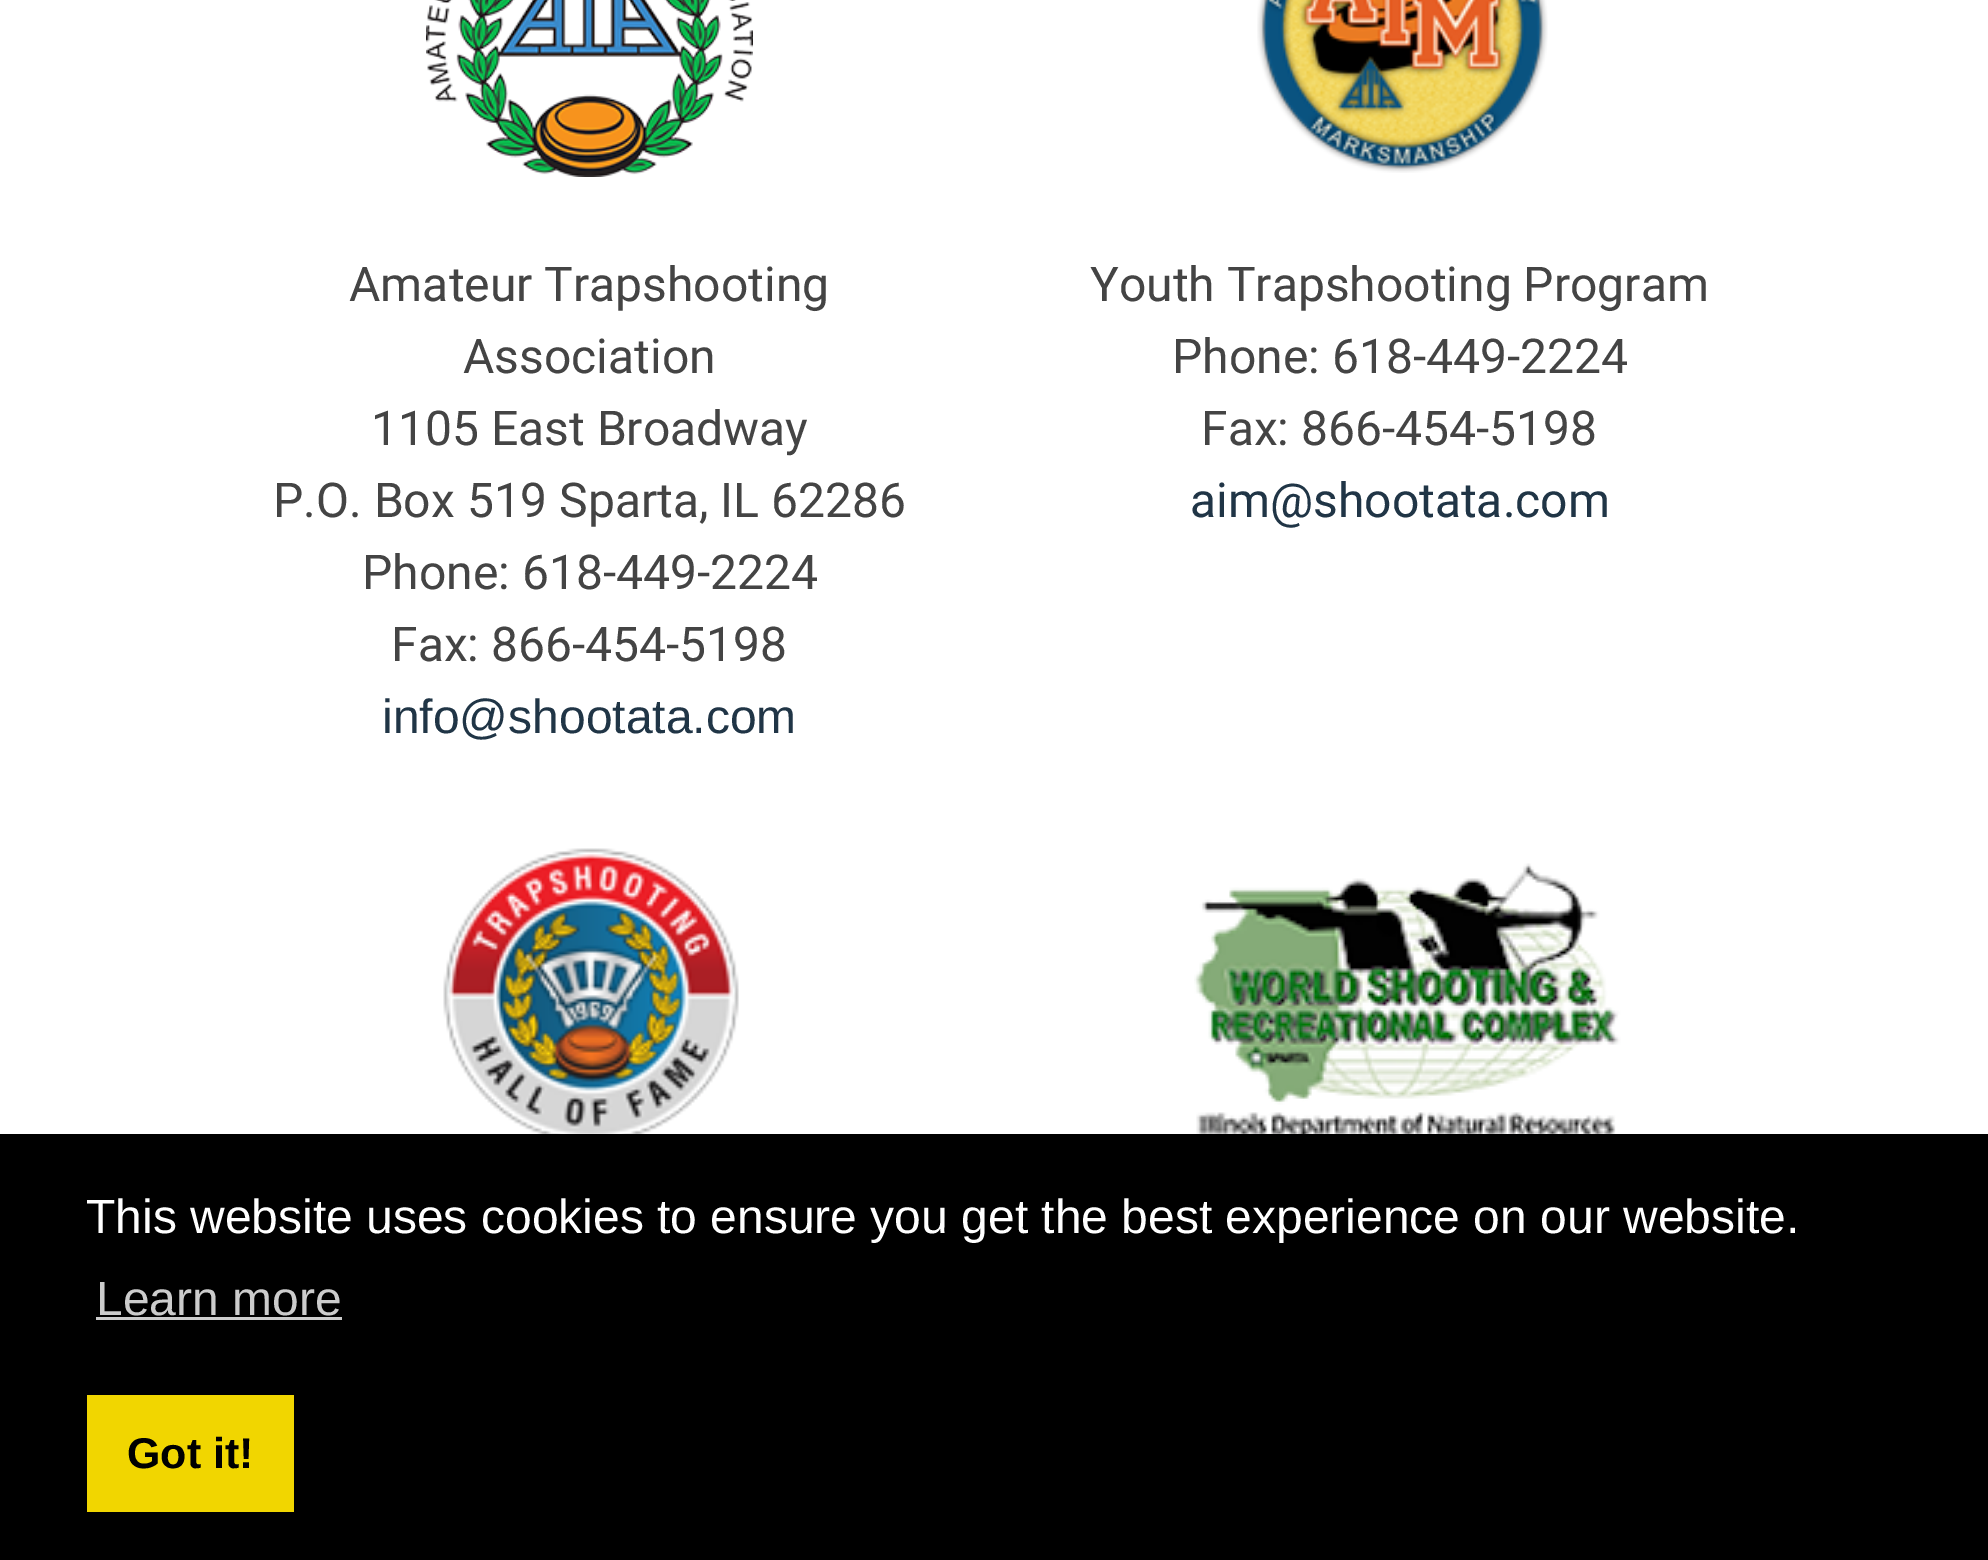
%!PS
<< /PageSize [1988 1560] >> setpagedevice
/picture { 5 dict begin { /h /w /y /x /name } { exch def } forall
  gsave x y translate w h scale
  w h 8 [w 0 0 h 0 0] name (r) file false 3 colorimage grestore end } def
0 1560 translate 1 -1 scale
4 setmiterlimit
1 setgray
0 0 1988 1560 rectfill
(img1.rgb) 426 0 327 177 picture
/Roboto-Regular [48 0 0 -48 0 0] selectfont
0.267 setgray
349 301 moveto (Amateur Trapshooting) show
463 373 moveto (Association) show
371 445 moveto (1105 East Broadway) show
273 517 moveto (P.O. Box 519 Sparta, IL 62286) show
362 589 moveto (Phone: 618-449-2224) show
391 661 moveto (Fax: 866-454-5198) show
/LiberationSans-Regular [48 0 0 -48 0 0] selectfont
0.125 0.208 0.275 setrgbcolor
382 733 moveto (info@shootata.com) show
(img2.rgb) 1257 0 291 173 picture
/Roboto-Regular [48 0 0 -48 0 0] selectfont
0.267 setgray
1090 301 moveto (Youth Trapshooting Program) show
1172 373 moveto (Phone: 618-449-2224) show
1201 445 moveto (Fax: 866-454-5198) show
0.125 0.208 0.275 setrgbcolor
1190 517 moveto (aim@shootata.com) show
(img3.rgb) 443 848 296 286 picture
(img4.rgb) 1194 863 427 271 picture
0 setgray
0 1134 1988 426 rectfill
/LiberationSans-Regular [48 0 0 -48 0 0] selectfont
1 setgray
86 1233 moveto (This website uses cookies to ensure you get the best experience on our website.) show
0.8 setgray
96 1315 moveto (Learn more) show
96 1317 246 3 rectfill
0.945 0.839 0 setrgbcolor
87 1395 207 117 rectfill
/LiberationSans-Bold [43 0 0 -43 0 0] selectfont
0 setgray
127 1468 moveto (Got it!) show
showpage
